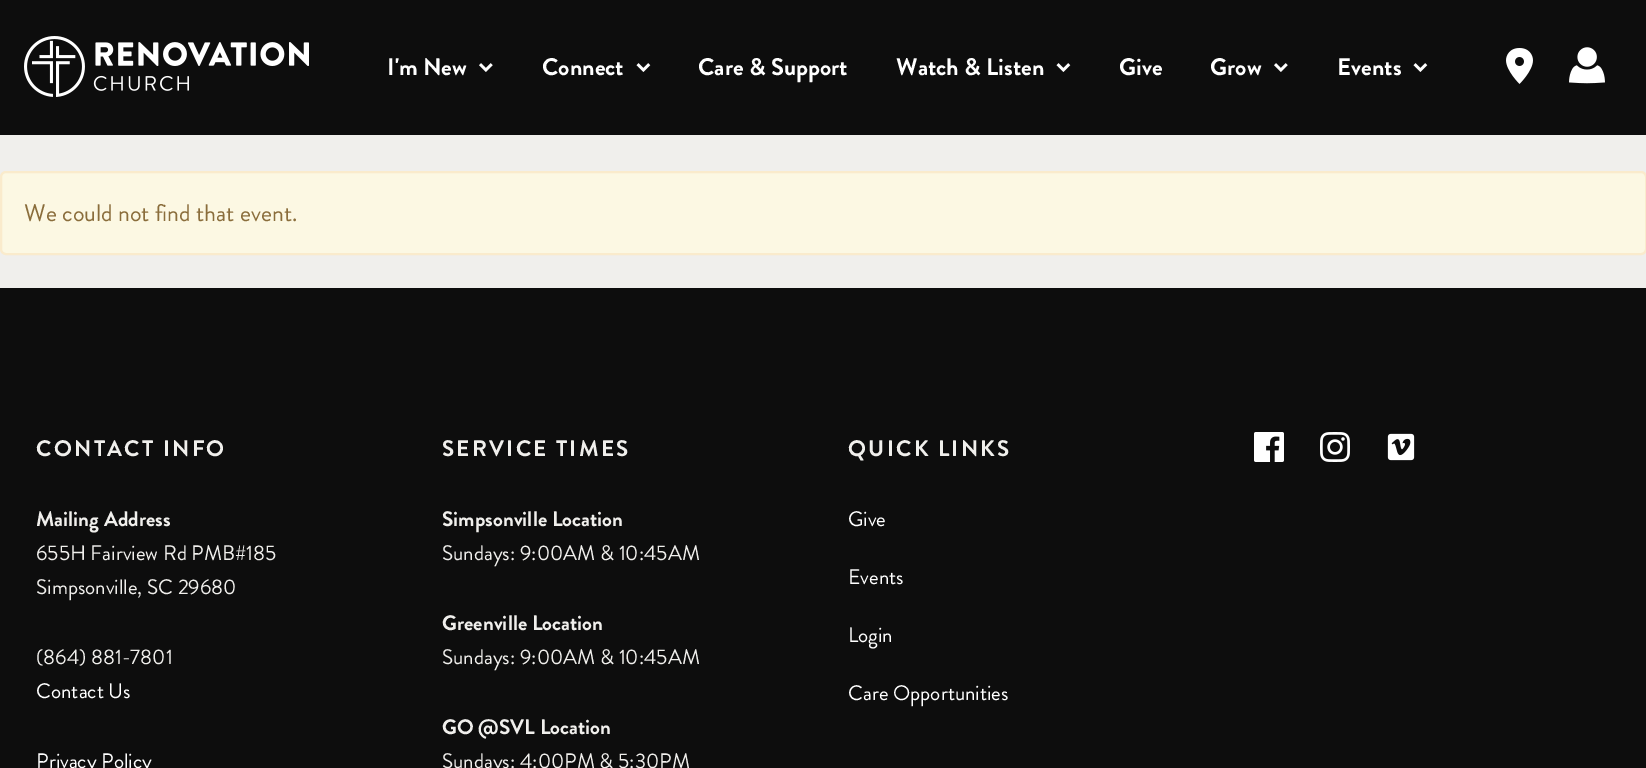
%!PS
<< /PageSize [1646 768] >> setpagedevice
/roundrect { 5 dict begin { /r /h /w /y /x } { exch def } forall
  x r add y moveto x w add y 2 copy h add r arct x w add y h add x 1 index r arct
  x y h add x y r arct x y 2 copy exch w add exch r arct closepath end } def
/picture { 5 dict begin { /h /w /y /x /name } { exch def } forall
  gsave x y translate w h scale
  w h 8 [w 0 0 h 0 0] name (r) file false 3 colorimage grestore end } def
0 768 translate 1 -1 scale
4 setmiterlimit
0.941 0.937 0.925 setrgbcolor
0 0 1646 768 rectfill
0.051 setgray
0 0 1646 135 rectfill
(img1.rgb) 24 36 285 61 picture
/BrandonGrotesque-Bold [24 0 0 -24 0 0] selectfont
1 setgray
387 75 moveto (I'm New) show
(img2.rgb) 479 63 14 9 picture
542 75 moveto (Connect) show
(img3.rgb) 636 63 15 9 picture
698 75 moveto (Care & Support) show
896 75 moveto (Watch & Listen) show
(img3.rgb) 1056 63 15 9 picture
1119 75 moveto (Give) show
1210 75 moveto (Grow) show
(img2.rgb) 1274 63 14 9 picture
1337 75 moveto (Events) show
(img3.rgb) 1413 63 15 9 picture
(img4.rgb) 1506 48 27 36 picture
(img5.rgb) 1569 47 36 37 picture
0.988 0.973 0.89 setrgbcolor
1 172 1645 82 5 roundrect gsave fill grestore
0.98 0.922 0.8 setrgbcolor
2 setlinewidth
stroke
/BrandonGrotesque-Regular [24 0 0 -24 0 0] selectfont
0.541 0.427 0.231 setrgbcolor
24 221 moveto (We could not find that event.) show
0.051 setgray
0 288 1646 480 rectfill
/BrandonGrotesque-Bold [22.5 0 0 -22.5 0 0] selectfont
0.941 0.937 0.925 setrgbcolor
36 456 moveto 2.25 0 (CONTACT INFO) ashow
/BrandonGrotesque-Bold [21 0 0 -21 0 0] selectfont
36 526 moveto (Mailing Address) show
/BrandonGrotesque-Regular [21 0 0 -21 0 0] selectfont
36 560 moveto (655H Fairview Rd PMB#185) show
36 594 moveto (Simpsonville, SC 29680) show
36 664 moveto (\(864\) 881-7801) show
1 setgray
36 698 moveto (Contact Us) show
36 768 moveto (Privacy Policy) show
/BrandonGrotesque-Bold [22.5 0 0 -22.5 0 0] selectfont
0.941 0.937 0.925 setrgbcolor
442 456 moveto 2.25 0 (SERVICE TIMES) ashow
/BrandonGrotesque-Bold [21 0 0 -21 0 0] selectfont
442 526 moveto (Simpsonville Location) show
/BrandonGrotesque-Regular [21 0 0 -21 0 0] selectfont
442 560 moveto (Sundays: 9:00AM & 10:45AM) show
/BrandonGrotesque-Bold [21 0 0 -21 0 0] selectfont
442 630 moveto (Greenville Location) show
/BrandonGrotesque-Regular [21 0 0 -21 0 0] selectfont
442 664 moveto (Sundays: 9:00AM & 10:45AM) show
/BrandonGrotesque-Bold [21 0 0 -21 0 0] selectfont
442 734 moveto (GO @SVL Location) show
/BrandonGrotesque-Regular [21 0 0 -21 0 0] selectfont
442 768 moveto (Sundays: 4:00PM & 5:30PM) show
/BrandonGrotesque-Bold [22.5 0 0 -22.5 0 0] selectfont
848 456 moveto 2.25 0 (QUICK LINKS) ashow
/BrandonGrotesque-Regular [21 0 0 -21 0 0] selectfont
1 setgray
848 526 moveto (Give) show
848 584 moveto (Events) show
848 642 moveto (Login) show
848 700 moveto (Care Opportunities) show
(img6.rgb) 1254 432 30 30 picture
(img7.rgb) 1320 432 30 30 picture
(img8.rgb) 1387 433 28 28 picture
showpage
